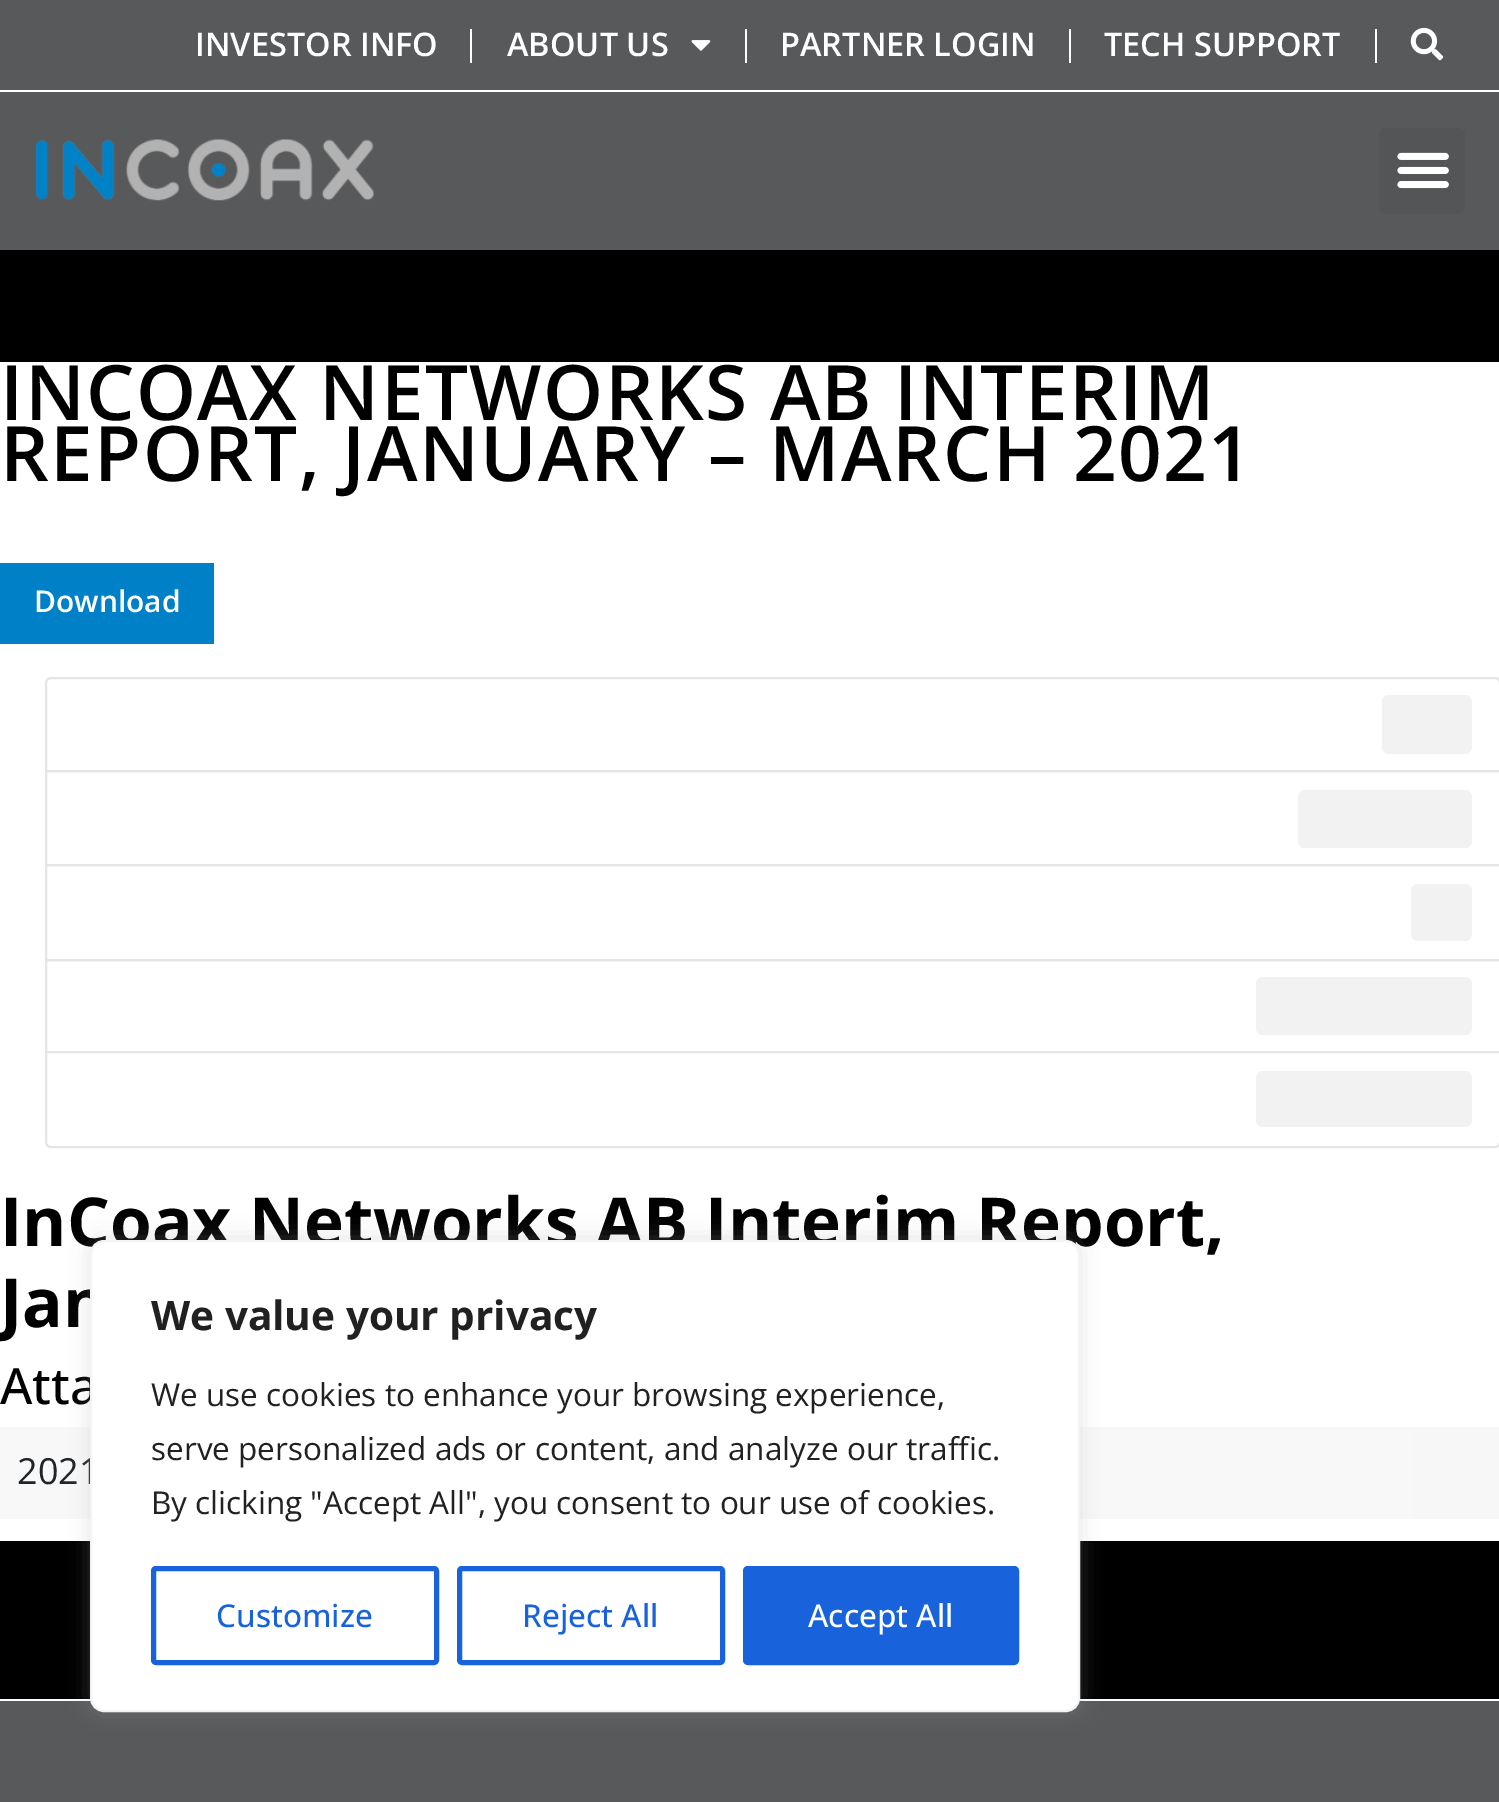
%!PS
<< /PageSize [1499 1802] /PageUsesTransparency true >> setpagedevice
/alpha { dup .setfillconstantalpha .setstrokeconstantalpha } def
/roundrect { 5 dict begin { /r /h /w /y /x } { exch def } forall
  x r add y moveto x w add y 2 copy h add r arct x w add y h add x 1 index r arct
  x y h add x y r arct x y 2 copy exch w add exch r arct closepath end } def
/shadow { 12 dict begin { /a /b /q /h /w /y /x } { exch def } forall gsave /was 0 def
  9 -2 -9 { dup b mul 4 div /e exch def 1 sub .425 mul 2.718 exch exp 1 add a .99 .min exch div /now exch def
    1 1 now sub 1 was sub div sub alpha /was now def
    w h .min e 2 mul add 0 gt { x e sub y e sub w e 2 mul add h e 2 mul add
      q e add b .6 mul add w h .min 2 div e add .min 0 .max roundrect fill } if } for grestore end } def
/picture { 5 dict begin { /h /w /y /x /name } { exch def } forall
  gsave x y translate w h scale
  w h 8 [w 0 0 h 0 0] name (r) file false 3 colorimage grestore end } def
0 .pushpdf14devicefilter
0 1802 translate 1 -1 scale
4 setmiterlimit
0.345 0.349 0.357 setrgbcolor
0 0 1499 1802 rectfill
1 setgray
0 90 1499 2 rectfill
/OpenSans-SemiBold [32.5 0 0 -32.5 0 0] selectfont
195 56 moveto (INVESTOR INFO) show
470 29 2 34 rectfill
507 56 moveto (ABOUT US) show
(img1.rgb) 691 40 20 11 picture
745 29 2 34 rectfill
780 56 moveto (PARTNER LOGIN) show
1069 29 2 34 rectfill
1104 56 moveto (TECH SUPPORT) show
1375 29 2 34 rectfill
(img2.rgb) 1410 27 34 34 picture
(img3.rgb) 36 139 338 62 picture
0.329 0.333 0.337 setrgbcolor
1379 128 86 86 7 roundrect fill
(img4.rgb) 1397 152 52 37 picture
0 setgray
0 250 1499 1449 rectfill
1 setgray
0 1699 1499 2 rectfill
0 362 1499 1179 rectfill
/OpenSans-SemiBold [76.5 0 0 -76.5 0 0] selectfont
0 setgray
0 420 moveto 1.35 0 (INCOAX NETWORKS AB INTERIM) ashow
0 481 moveto 1.35 0 (REPORT, JANUARY – MARCH 2021) ashow
0 0.506 0.78 setrgbcolor
0 563 214 81 rectfill
/OpenSans-SemiBold [30 0 0 -30 0 0] selectfont
1 setgray
34 612 moveto (Download) show
0.898 setgray
2 setlinewidth
newpath 51 678 moveto 1495 678 lineto 1498 678 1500 680 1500 683 curveto 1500 771 lineto 46 771 lineto 46 683 lineto 46 680 48 678 51 678 curveto closepath stroke
0.949 setgray
1382 695 90 59 7 roundrect fill
0.898 setgray
46 771 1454 94 rectstroke
0.949 setgray
1298 790 174 58 7 roundrect fill
0.898 setgray
46 865 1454 95 rectstroke
0.949 setgray
1411 884 61 57 7 roundrect fill
0.898 setgray
46 960 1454 92 rectstroke
0.949 setgray
1256 977 216 58 7 roundrect fill
1 setgray
newpath 46 1052 moveto 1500 1052 lineto 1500 1142 lineto 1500 1145 1498 1147 1495 1147 curveto 51 1147 lineto 48 1147 46 1145 46 1142 curveto closepath gsave fill grestore
0.898 setgray
stroke
0.949 setgray
1256 1071 216 56 7 roundrect fill
/OpenSans-Bold [67.5 0 0 -67.5 0 0] selectfont
0 setgray
0 1246 moveto (InCoax Networks AB Interim Report,) show
0 1327 moveto (Jan) show
/OpenSans-Medium [50 0 0 -50 0 0] selectfont
0 1404 moveto (Atta) show
0.973 setgray
0 1427 1413 92 rectfill
/OpenSans-Regular [36 0 0 -36 0 0] selectfont
0.129 0.145 0.161 setrgbcolor
17 1484 moveto (2021) show
0.969 setgray
1413 1427 86 92 rectfill
0.675 0.671 0.671 setrgbcolor
90 1238 990 472 14 11 0.3 shadow
1 setgray
91 1241 988 470 13 roundrect gsave fill grestore
0.957 setgray
stroke
/OpenSans-Bold [40.5 0 0 -40.5 0 0] selectfont
0.129 setgray
151 1330 moveto (We value your privacy) show
/OpenSans-Regular [31.5 0 0 -31.5 0 0] selectfont
151 1406 moveto (We use cookies to enhance your browsing experience,) show
151 1460 moveto (serve personalized ads or content, and analyze our traffic.) show
151 1514 moveto (By clicking "Accept All", you consent to our use of cookies.) show
0.094 0.388 0.863 setrgbcolor
5 setlinewidth
153.5 1568.5 283 94 2.5 roundrect stroke
/OpenSans-Medium [31.5 0 0 -31.5 0 0] selectfont
216 1627 moveto (Customize) show
459.5 1568.5 263 94 2.5 roundrect stroke
522 1627 moveto (Reject All) show
745.5 1568.5 271 94 2.5 roundrect gsave fill grestore
stroke
1 setgray
808 1627 moveto (Accept All) show
.poppdf14devicefilter showpage
